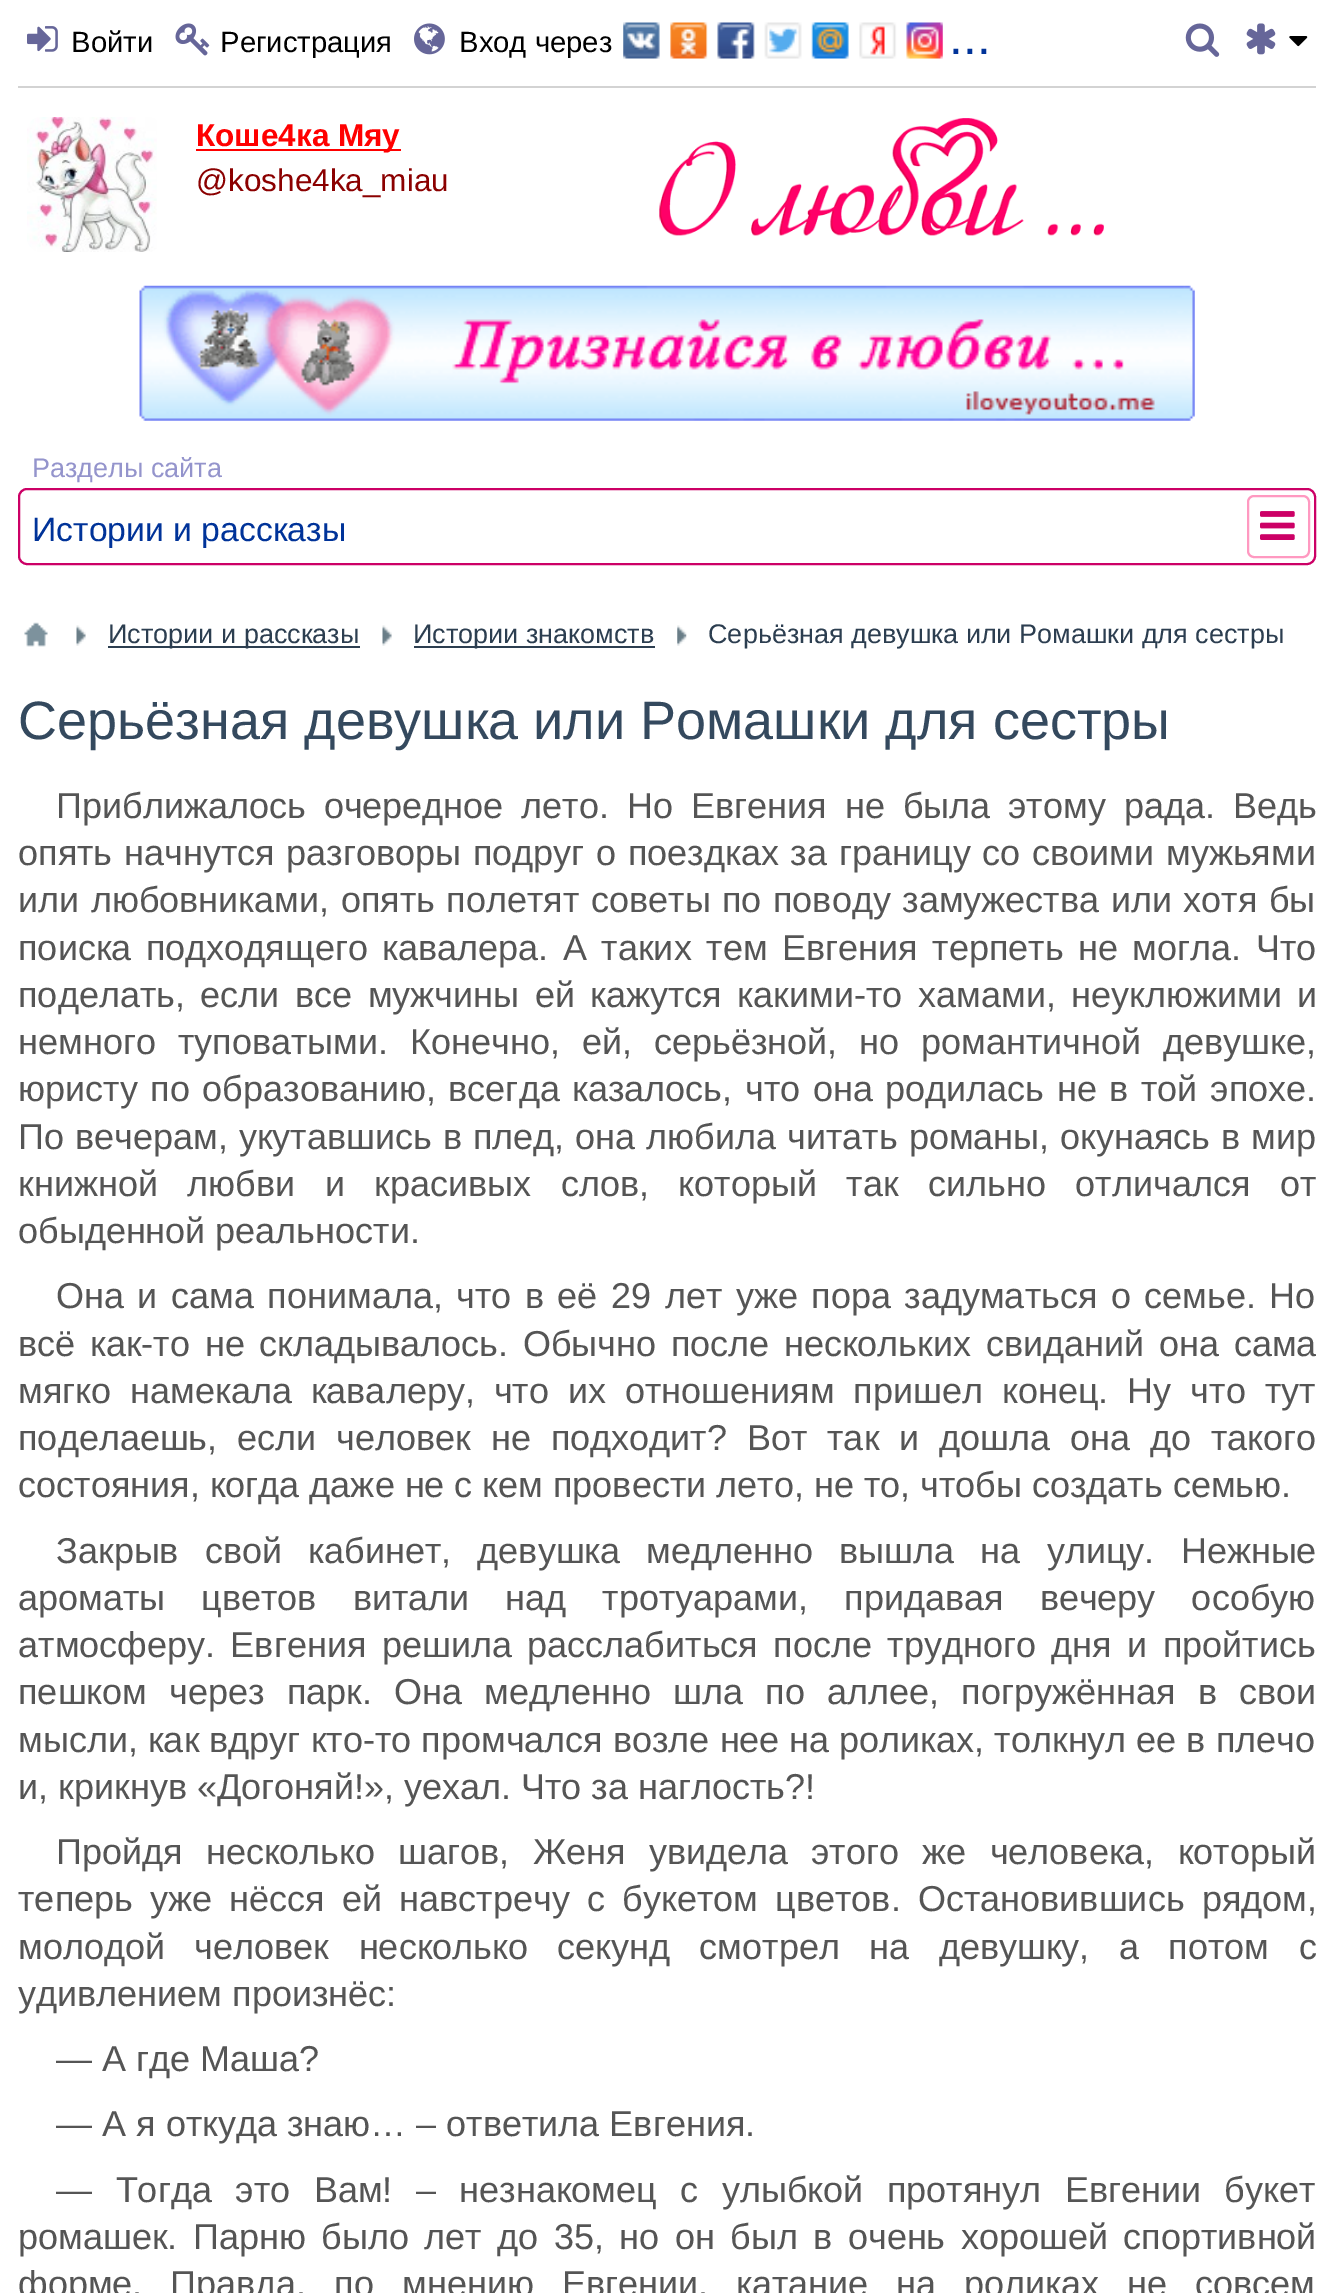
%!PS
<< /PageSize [1334 2293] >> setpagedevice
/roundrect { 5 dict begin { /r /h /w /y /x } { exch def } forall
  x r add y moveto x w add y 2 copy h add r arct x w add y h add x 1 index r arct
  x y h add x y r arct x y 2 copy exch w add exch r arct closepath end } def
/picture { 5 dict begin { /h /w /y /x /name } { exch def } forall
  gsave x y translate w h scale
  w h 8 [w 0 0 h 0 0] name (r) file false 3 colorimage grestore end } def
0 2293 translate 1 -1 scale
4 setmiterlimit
1 setgray
0 0 1334 2293 rectfill
0.827 setgray
18 86 1298 2 rectfill
(img1.rgb) 27 26 31 26 picture
/LiberationSans-Regular [29.25 0 0 -29.25 0 0] selectfont
0 setgray
71 52 moveto (Войти) show
(img2.rgb) 175 23 35 33 picture
220 52 moveto (Регистрация) show
(img3.rgb) 414 23 31 32 picture
459 52 moveto (Вход через) show
(img4.rgb) 623 22 320 37 picture
/LiberationSans-Regular [50 0 0 -50 0 0] selectfont
0 0.2 0.6 setrgbcolor
949 54 moveto (...) show
(img5.rgb) 1185 23 35 34 picture
(img6.rgb) 1246 23 30 32 picture
(img7.rgb) 1289 36 19 11 picture
(img8.rgb) 27 117 130 135 picture
1 0 0 setrgbcolor
196 149 205 2 rectfill
/LiberationSans-Bold [31.5 0 0 -31.5 0 0] selectfont
196 146 moveto (Коше4ка Мяу) show
/LiberationSans-Regular [31.5 0 0 -31.5 0 0] selectfont
0.545 0 0 setrgbcolor
196 191 moveto (@koshe4ka_miau) show
(img9.rgb) 659 118 445 118 picture
(img10.rgb) 139 285 1056 136 picture
/LiberationSans-Regular [27 0 0 -27 0 0] selectfont
0.58 0.58 0.8 setrgbcolor
32 477 moveto (Разделы сайта) show
0.8 0 0.4 setrgbcolor
2 setlinewidth
19 489 1296 75 8 roundrect stroke
/LiberationSans-Regular [33.75 0 0 -33.75 0 0] selectfont
0 0.2 0.6 setrgbcolor
32 541 moveto (Истории и рассказы) show
1 0.6 0.757 setrgbcolor
1248 496 61 61 6 roundrect stroke
(img11.rgb) 1260 511 35 29 picture
(img12.rgb) 24 622 24 25 picture
(img13.rgb) 76 625 10 21 picture
0.173 0.243 0.314 setrgbcolor
108 646 252 2 rectfill
/LiberationSans-Regular [27 0 0 -27 0 0] selectfont
108 643 moveto (Истории и рассказы) show
(img13.rgb) 382 625 10 21 picture
414 646 241 2 rectfill
413 643 moveto (Истории знакомств) show
(img14.rgb) 677 625 10 21 picture
708 643 moveto (Серьёзная девушка или Ромашки для сестры) show
/LiberationSans-Regular [54 0 0 -54 0 0] selectfont
0.204 0.286 0.369 setrgbcolor
18 739 moveto (Серьёзная девушка или Ромашки для сестры) show
/LiberationSans-Regular [36 0 0 -36 0 0] selectfont
0.333 setgray
56 818 moveto 8 0 32 (Приближалось очередное лето. Но Евгения не была этому рада. Ведь) widthshow
18 865 moveto 1.75 0 32 (опять начнутся разговоры подруг о поездках за границу со своими мужьями) widthshow
18 912 moveto 1.5 0 32 (или любовниками, опять полетят советы по поводу замужества или хотя бы) widthshow
18 960 moveto 4.5 0 32 (поиска подходящего кавалера. А таких тем Евгения терпеть не могла. Что) widthshow
18 1007 moveto 5.5 0 32 (поделать, если все мужчины ей кажутся какими-то хамами, неуклюжими и) widthshow
18 1054 moveto 12 0 32 (немного туповатыми. Конечно, ей, серьёзной, но романтичной девушке,) widthshow
18 1101 moveto 2.6 0 32 (юристу по образованию, всегда казалось, что она родилась не в той эпохе.) widthshow
18 1149 moveto 1 0 32 (По вечерам, укутавшись в плед, она любила читать романы, окунаясь в мир) widthshow
18 1196 moveto 19.5 0 32 (книжной любви и красивых слов, который так сильно отличался от) widthshow
18 1243 moveto (обыденной реальности.) show
56 1308 moveto 3.5 0 32 (Она и сама понимала, что в её 29 лет уже пора задуматься о семье. Но) widthshow
18 1356 moveto 4.75 0 32 (всё как-то не складывалось. Обычно после нескольких свиданий она сама) widthshow
18 1403 moveto 9 0 32 (мягко намекала кавалеру, что их отношениям пришел конец. Ну что тут) widthshow
18 1450 moveto 9.9 0 32 (поделаешь, если человек не подходит? Вот так и дошла она до такого) widthshow
18 1497 moveto (состояния, когда даже не с кем провести лето, не то, чтобы создать семью.) show
56 1563 moveto 16.25 0 32 (Закрыв свой кабинет, девушка медленно вышла на улицу. Нежные) widthshow
18 1610 moveto 26 0 32 (ароматы цветов витали над тротуарами, придавая вечеру особую) widthshow
18 1657 moveto 5.5 0 32 (атмосферу. Евгения решила расслабиться после трудного дня и пройтись) widthshow
18 1704 moveto 12.25 0 32 (пешком через парк. Она медленно шла по аллее, погружённая в свои) widthshow
18 1752 moveto (мысли, как вдруг кто-то промчался возле нее на роликах, толкнул ее в плечо) show
18 1799 moveto (и, крикнув «Догоняй!», уехал. Что за наглость?!) show
56 1864 moveto 13.25 0 32 (Пройдя несколько шагов, Женя увидела этого же человека, который) widthshow
18 1911 moveto 7.25 0 32 (теперь уже нёсся ей навстречу с букетом цветов. Остановившись рядом,) widthshow
18 1959 moveto 19.5 0 32 (молодой человек несколько секунд смотрел на девушку, а потом с) widthshow
18 2006 moveto (удивлением произнёс:) show
56 2071 moveto (— А где Маша?) show
56 2136 moveto (— А я откуда знаю… – ответила Евгения.) show
56 2202 moveto 13.5 0 32 (— Тогда это Вам! – незнакомец с улыбкой протянул Евгении букет) widthshow
18 2249 moveto 5.5 0 32 (ромашек. Парню было лет до 35, но он был в очень хорошей спортивной) widthshow
18 2296 moveto 18 0 32 (форме. Правда, по мнению Евгении, катание на роликах не совсем) widthshow
showpage
